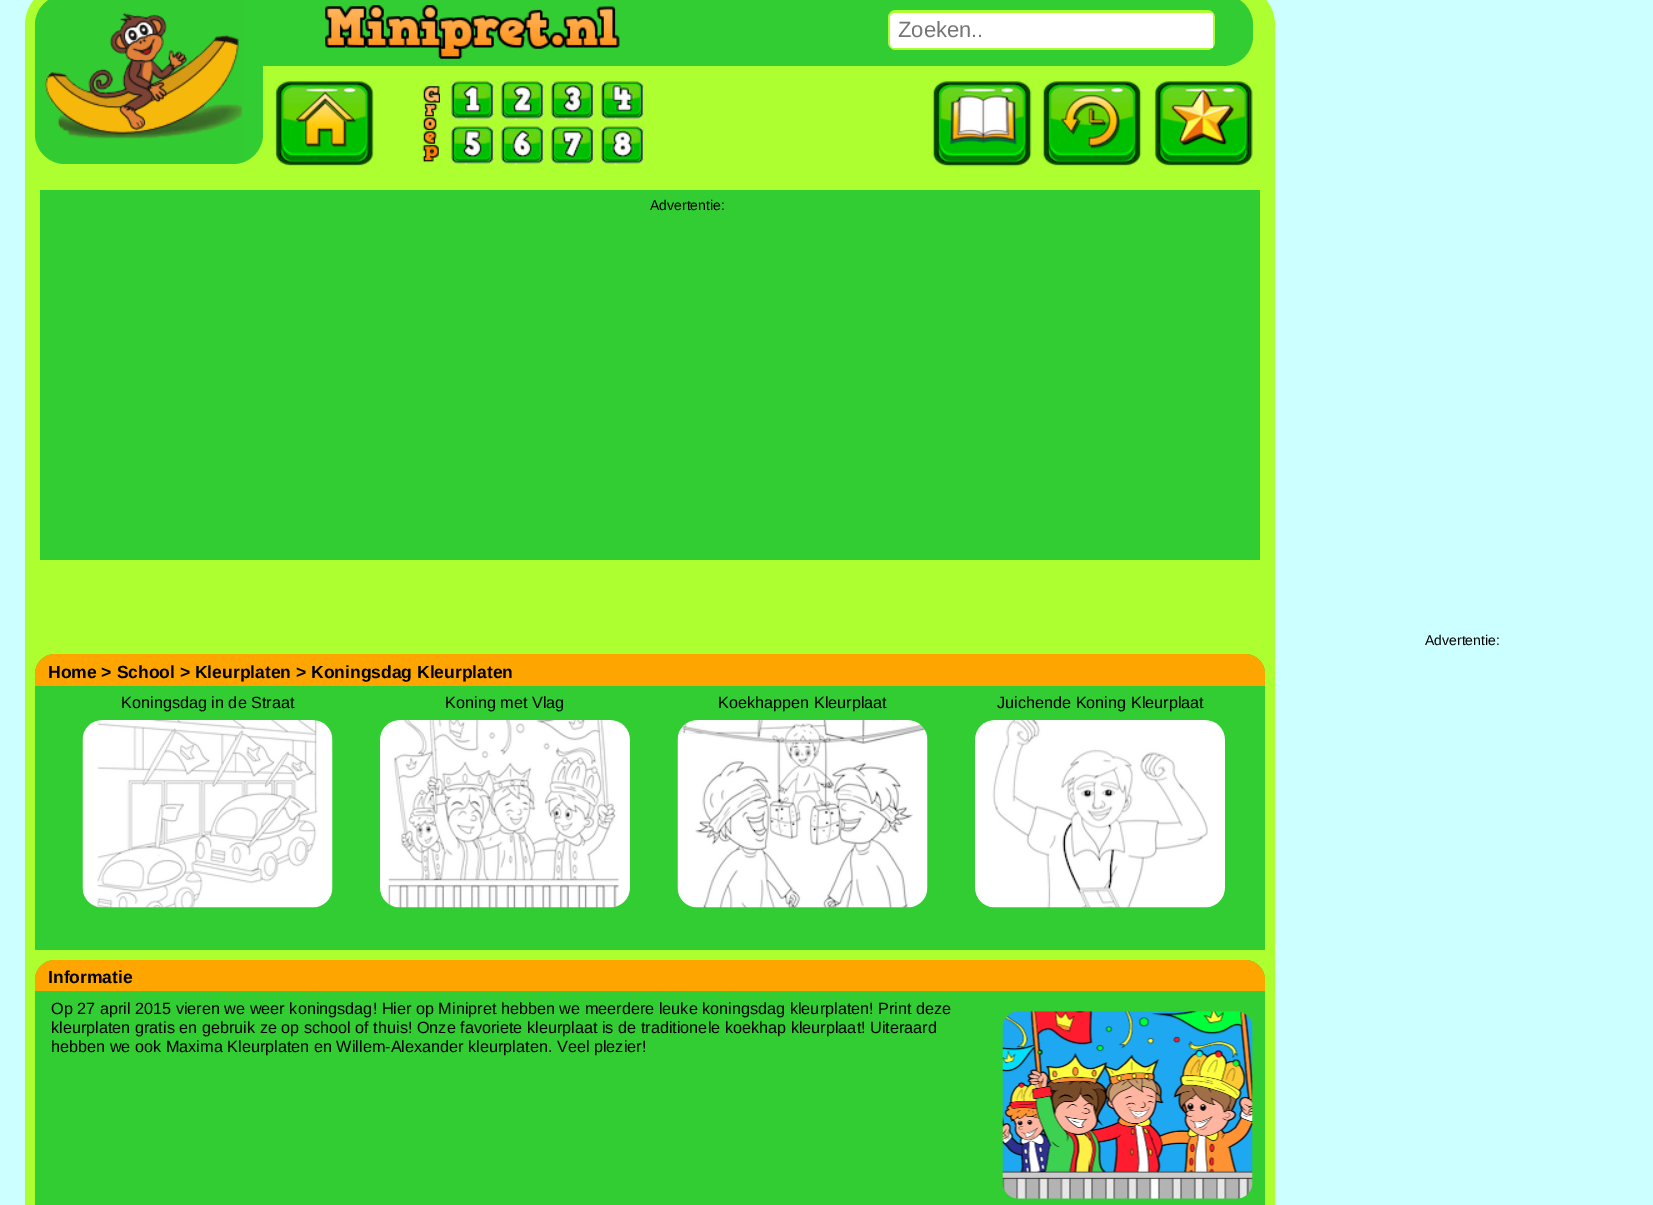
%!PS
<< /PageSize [1653 1205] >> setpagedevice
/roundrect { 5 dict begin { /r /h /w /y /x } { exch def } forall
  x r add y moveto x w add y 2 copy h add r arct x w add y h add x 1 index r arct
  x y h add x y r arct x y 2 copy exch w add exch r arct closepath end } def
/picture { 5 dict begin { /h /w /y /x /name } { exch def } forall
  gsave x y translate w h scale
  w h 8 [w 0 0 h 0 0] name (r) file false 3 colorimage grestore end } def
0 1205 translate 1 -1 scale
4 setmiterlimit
0.8 1 1 setrgbcolor
0 0 1653 1205 rectfill
0.678 1 0.184 setrgbcolor
newpath 65 -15 moveto 1235 -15 lineto 1257 -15 1275 3 1275 25 curveto 1275 190 lineto 25 190 lineto 25 25 lineto 25 3 43 -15 65 -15 curveto closepath fill
0.196 0.804 0.196 setrgbcolor
newpath 65 -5 moveto 263 -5 lineto 263 134 lineto 263 150.5 249.5 164 233 164 curveto 65 164 lineto 48.5 164 35 150.5 35 134 curveto 35 25 lineto 35 8.5 48.5 -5 65 -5 curveto closepath fill
(img1.rgb) 41 0 202 159 picture
newpath 263 -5 moveto 1223 -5 lineto 1239.5 -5 1253 8.5 1253 25 curveto 1253 36 lineto 1253 52.5 1239.5 66 1223 66 curveto 263 66 lineto closepath fill
(img2.rgb) 325 5 295 54 picture
0.678 1 0.184 setrgbcolor
888 10 327 40 8 roundrect fill
1 setgray
newpath 894 13 moveto 1213 13 lineto 1213 48 lineto 894 48 lineto 892 48 890 46 890 44 curveto 890 17 lineto 890 15 892 13 894 13 curveto closepath fill
/LiberationSans-Regular [22 0 0 -22 0 0] selectfont
0.459 setgray
898 37 moveto (Zoeken..) show
(img3.rgb) 275 81 99 85 picture
(img4.rgb) 422 86 18 77 picture
(img5.rgb) 451 81 43 39 picture
(img6.rgb) 501 81 43 39 picture
(img7.rgb) 551 81 43 39 picture
(img8.rgb) 601 81 43 39 picture
(img9.rgb) 451 126 43 39 picture
(img10.rgb) 501 126 43 39 picture
(img11.rgb) 551 126 43 39 picture
(img12.rgb) 601 126 43 39 picture
(img13.rgb) 932 81 100 86 picture
(img14.rgb) 1042 81 100 85 picture
(img15.rgb) 1154 81 99 85 picture
0.678 1 0.184 setrgbcolor
25 190 1250 1015 rectfill
0.196 0.804 0.196 setrgbcolor
40 190 1220 370 rectfill
/LiberationSans-Regular [14 0 0 -14 0 0] selectfont
0 setgray
650 210 moveto (Advertentie:) show
1425 645 moveto (Advertentie:) show
0.196 0.804 0.196 setrgbcolor
newpath 55 654 moveto 1245 654 lineto 1256 654 1265 663 1265 674 curveto 1265 950 lineto 35 950 lineto 35 674 lineto 35 663 44 654 55 654 curveto closepath fill
1 0.647 0 setrgbcolor
newpath 55 654 moveto 1245 654 lineto 1256 654 1265 663 1265 674 curveto 1265 686 lineto 35 686 lineto 35 674 lineto 35 663 44 654 55 654 curveto closepath fill
/LiberationSans-Bold [17.5 0 0 -17.5 0 0] selectfont
0 setgray
48 678 moveto (Home > School > Kleurplaten > Koningsdag Kleurplaten) show
/LiberationSans-Regular [16.25 0 0 -16.25 0 0] selectfont
121 708 moveto (Koningsdag in de Straat) show
(img16.rgb) 82 720 251 188 picture
445 708 moveto (Koning met Vlag) show
(img17.rgb) 380 720 250 188 picture
718 708 moveto (Koekhappen Kleurplaat) show
(img18.rgb) 677 720 251 188 picture
997 708 moveto (Juichende Koning Kleurplaat) show
(img19.rgb) 975 720 250 188 picture
0.196 0.804 0.196 setrgbcolor
newpath 55 960 moveto 1245 960 lineto 1256 960 1265 969 1265 980 curveto 1265 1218 lineto 35 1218 lineto 35 980 lineto 35 969 44 960 55 960 curveto closepath fill
1 0.647 0 setrgbcolor
newpath 55 960 moveto 1245 960 lineto 1256 960 1265 969 1265 980 curveto 1265 991 lineto 35 991 lineto 35 980 lineto 35 969 44 960 55 960 curveto closepath fill
/LiberationSans-Bold [17.5 0 0 -17.5 0 0] selectfont
0 setgray
48 983 moveto (Informatie) show
/LiberationSans-Regular [16.25 0 0 -16.25 0 0] selectfont
51 1014 moveto (Op 27 april 2015 vieren we weer koningsdag! Hier op Minipret hebben we meerdere leuke koningsdag kleurplaten! Print deze) show
(img20.rgb) 1002 1011 251 188 picture
51 1033 moveto (kleurplaten gratis en gebruik ze op school of thuis! Onze favoriete kleurplaat is de traditionele koekhap kleurplaat! Uiteraard) show
51 1052 moveto (hebben we ook Maxima Kleurplaten en Willem-Alexander kleurplaten. Veel plezier!) show
showpage
